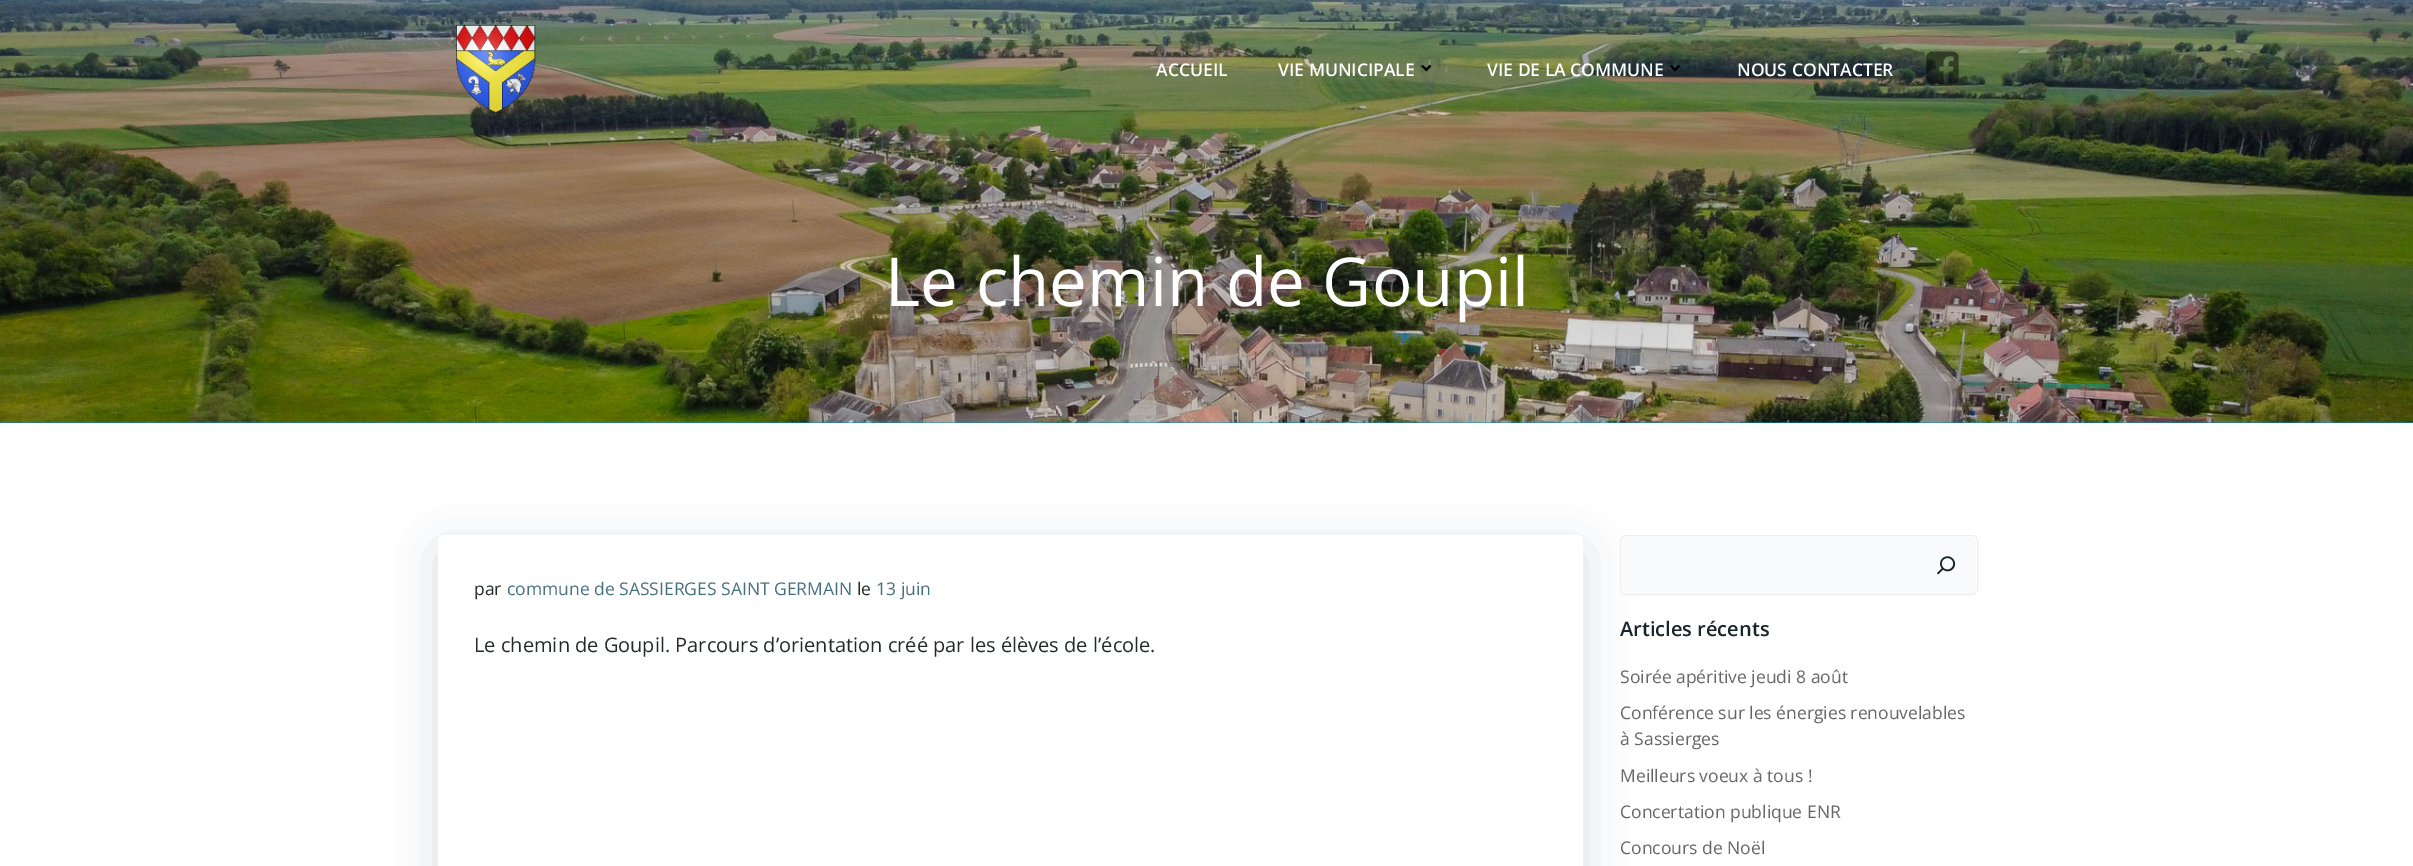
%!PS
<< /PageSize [2413 866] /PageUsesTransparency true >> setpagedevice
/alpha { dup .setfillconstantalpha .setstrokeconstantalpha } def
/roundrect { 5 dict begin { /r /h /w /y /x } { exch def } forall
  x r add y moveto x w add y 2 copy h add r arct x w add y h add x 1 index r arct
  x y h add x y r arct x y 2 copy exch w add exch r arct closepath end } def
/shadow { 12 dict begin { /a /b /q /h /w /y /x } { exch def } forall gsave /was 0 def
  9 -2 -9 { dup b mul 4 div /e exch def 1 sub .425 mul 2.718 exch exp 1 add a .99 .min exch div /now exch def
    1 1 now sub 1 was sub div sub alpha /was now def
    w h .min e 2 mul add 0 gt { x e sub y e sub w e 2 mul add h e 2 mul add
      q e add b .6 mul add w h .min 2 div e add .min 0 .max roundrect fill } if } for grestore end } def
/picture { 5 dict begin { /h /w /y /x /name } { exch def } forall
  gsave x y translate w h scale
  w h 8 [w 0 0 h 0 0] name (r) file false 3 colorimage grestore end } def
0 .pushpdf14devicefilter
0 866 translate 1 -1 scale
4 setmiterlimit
1 setgray
0 0 2413 866 rectfill
0.012 0.576 0.831 setrgbcolor
0 422 2413 1 rectfill
(img5.rgb) 0 0 2413 423 picture
(img1.rgb) 456 25 80 88 picture
/OpenSans-SemiBold [17.5 0 0 -17.5 0 0] selectfont
1 setgray
1156 76 moveto (ACCUEIL) show
1278 76 moveto (VIE MUNICIPALE) show
(img2.rgb) 1421 65 11 7 picture
1487 76 moveto (VIE DE LA COMMUNE) show
(img3.rgb) 1670 65 10 7 picture
1737 76 moveto (NOUS CONTACTER) show
(img4.rgb) 1926 51 33 33 picture
/OpenSans-Regular [67.5 0 0 -67.5 0 0] selectfont
885 306 moveto (Le chemin de Goupil) show
0.004 0.2 0.29 setrgbcolor
438 548 1145 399 6 25 0.15 shadow
1 setgray
438 535 1145 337 6 roundrect fill
/OpenSans-Regular [17.5 0 0 -17.5 0 0] selectfont
0.145 0.161 0.165 setrgbcolor
474 595 moveto (par) show
0.275 0.439 0.498 setrgbcolor
507 595 moveto (commune de SASSIERGES SAINT GERMAIN) show
0.145 0.161 0.165 setrgbcolor
857 595 moveto (le) show
0.275 0.439 0.498 setrgbcolor
876 595 moveto (13 juin) show
/OpenSans-Regular [20 0 0 -20 0 0] selectfont
0.145 0.161 0.165 setrgbcolor
474 652 moveto (Le chemin de Goupil. Parcours d’orientation créé par les élèves de l’école.) show
0.933 setgray
1620.5 535.5 357 59 5.5 roundrect stroke
gsave
1621 536 355 58 5 roundrect clip newpath
0.976 0.98 0.984 setrgbcolor
newpath 1627 536 moveto 1916 536 lineto 1916 594 lineto 1627 594 lineto 1623.5 594 1621 591.5 1621 588 curveto 1621 542 lineto 1621 538.5 1623.5 536 1627 536 curveto closepath fill
newpath 1916 536 moveto 1970 536 lineto 1973.5 536 1976 538.5 1976 542 curveto 1976 588 lineto 1976 591.5 1973.5 594 1970 594 curveto 1916 594 lineto closepath fill
grestore
(img6.rgb) 1937 556 19 19 picture
/OpenSans-SemiBold [20 0 0 -20 0 0] selectfont
0.09 0.145 0.165 setrgbcolor
1620 636 moveto (Articles récents) show
/OpenSans-Regular [17.5 0 0 -17.5 0 0] selectfont
0.4 setgray
1620 683 moveto (Soirée apéritive jeudi 8 août) show
1620 719 moveto (Conférence sur les énergies renouvelables) show
1620 745 moveto (à Sassierges) show
1620 782 moveto (Meilleurs voeux à tous !) show
1620 818 moveto (Concertation publique ENR) show
1620 854 moveto (Concours de Noël) show
.poppdf14devicefilter showpage
